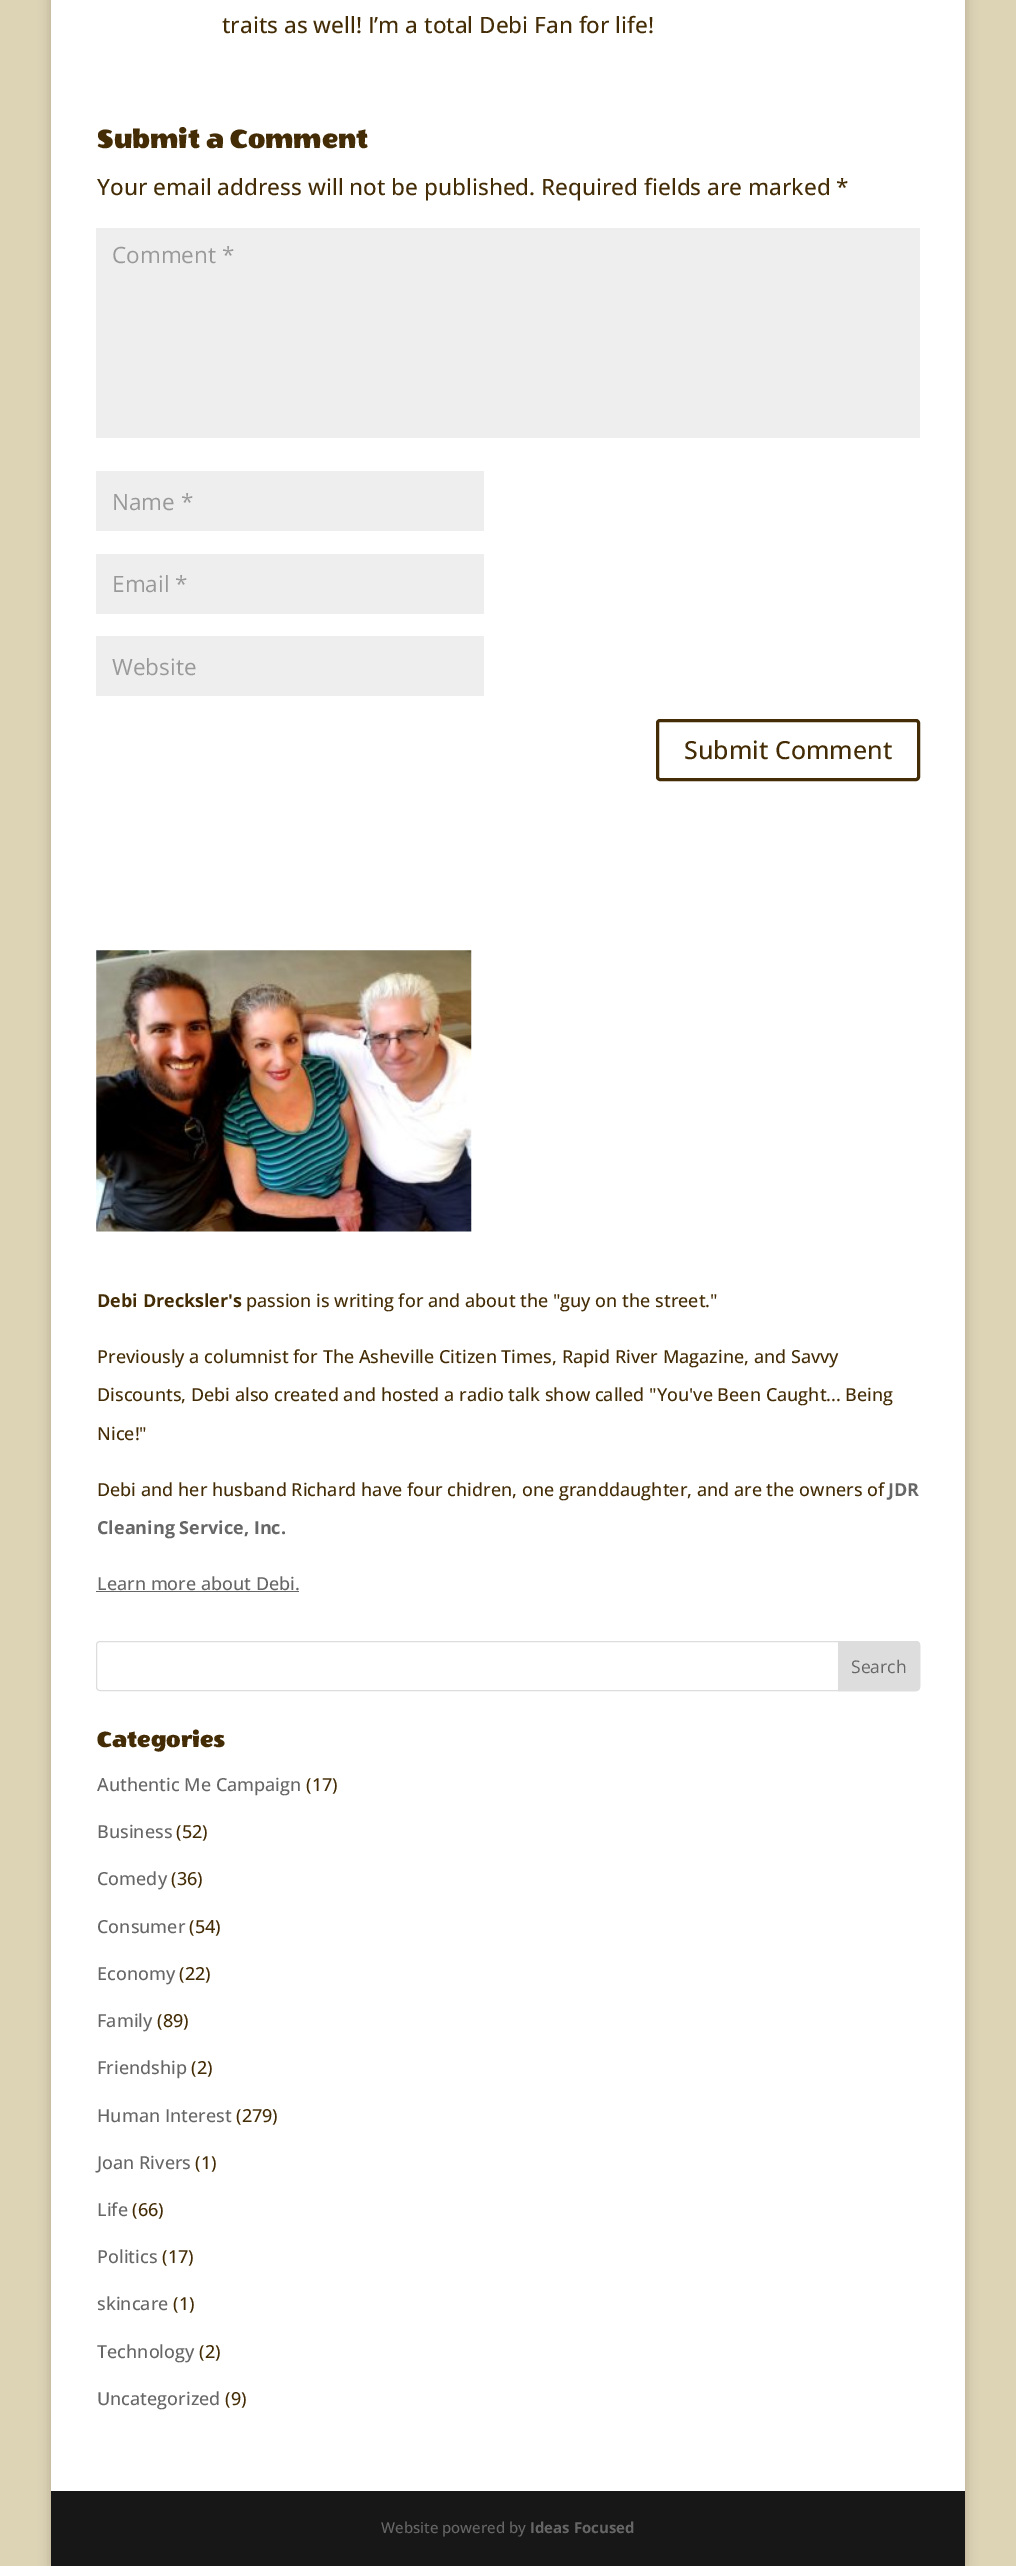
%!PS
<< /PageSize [1016 2566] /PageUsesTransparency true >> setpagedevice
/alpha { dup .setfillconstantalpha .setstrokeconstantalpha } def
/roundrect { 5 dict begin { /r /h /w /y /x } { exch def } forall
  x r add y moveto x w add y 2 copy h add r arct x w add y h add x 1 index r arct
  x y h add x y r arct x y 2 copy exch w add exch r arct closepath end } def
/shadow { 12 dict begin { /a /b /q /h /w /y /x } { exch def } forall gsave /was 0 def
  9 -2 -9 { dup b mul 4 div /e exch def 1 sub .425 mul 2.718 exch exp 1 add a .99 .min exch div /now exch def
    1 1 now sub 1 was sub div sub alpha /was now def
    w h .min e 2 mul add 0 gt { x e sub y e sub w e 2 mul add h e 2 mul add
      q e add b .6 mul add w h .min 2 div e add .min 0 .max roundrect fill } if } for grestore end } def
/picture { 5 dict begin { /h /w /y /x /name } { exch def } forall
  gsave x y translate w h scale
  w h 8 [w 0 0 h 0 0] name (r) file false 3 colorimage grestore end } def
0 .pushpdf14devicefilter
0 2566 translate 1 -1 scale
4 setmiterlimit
0.867 0.827 0.71 setrgbcolor
0 0 1016 2566 rectfill
0 setgray
51 -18 914 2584 0 6 0.2 shadow
1 setgray
51 0 914 2491 rectfill
/OpenSans-Medium [22.5 0 0 -22.5 0 0] selectfont
0.267 0.176 0.024 setrgbcolor
222 33 moveto (traits as well! I’m a total Debi Fan for life!) show
/WendyOne-Regular [30 0 0 -30 0 0] selectfont
97 148 moveto (Submit a Comment) show
/OpenSans-Medium [22.5 0 0 -22.5 0 0] selectfont
97 195 moveto (Your email address will not be published. Required fields are marked *) show
0.933 setgray
96 228 824 210 rectfill
/OpenSans-Regular [22.5 0 0 -22.5 0 0] selectfont
0.6 setgray
112 263 moveto (Comment *) show
0.933 setgray
96 471 388 60 rectfill
0.6 setgray
112 510 moveto (Name *) show
0.933 setgray
96 554 388 60 rectfill
0.6 setgray
112 592 moveto (Email *) show
0.933 setgray
96 636 388 60 rectfill
0.6 setgray
112 675 moveto (Website) show
0.267 0.176 0.024 setrgbcolor
3 setlinewidth
657.5 720.5 261 59 2.5 roundrect stroke
/OpenSans-Medium [25 0 0 -25 0 0] selectfont
684 759 moveto (Submit Comment) show
(img1.rgb) 96 950 376 282 picture
/OpenSans-Bold [18 0 0 -18 0 0] selectfont
97 1307 moveto (Debi Drecksler's) show
/OpenSans-Medium [18 0 0 -18 0 0] selectfont
246 1307 moveto (passion is writing for and about the "guy on the street.") show
97 1363 moveto (Previously a columnist for The Asheville Citizen Times, Rapid River Magazine, and Savvy) show
97 1401 moveto (Discounts, Debi also created and hosted a radio talk show called "You've Been Caught... Being) show
97 1440 moveto (Nice!") show
97 1496 moveto (Debi and her husband Richard have four chidren, one granddaughter, and are the owners of) show
/OpenSans-Bold [18 0 0 -18 0 0] selectfont
0.4 setgray
888 1496 moveto (JDR) show
97 1534 moveto (Cleaning Service, Inc.) show
/OpenSans-Medium [18 0 0 -18 0 0] selectfont
97 1590 moveto (Learn more about Debi.) show
96 1591 203 1 rectfill
0.867 setgray
1 setlinewidth
96.5 1641.5 823 49 3.5 roundrect stroke
newpath 838.5 1641.5 moveto 916 1641.5 lineto 918 1641.5 919.5 1643 919.5 1645 curveto 919.5 1687 lineto 919.5 1689 918 1690.5 916 1690.5 curveto 838.5 1690.5 lineto closepath gsave fill grestore
stroke
/OpenSans-Regular [17.5 0 0 -17.5 0 0] selectfont
0.4 setgray
851 1673 moveto (Search) show
/WendyOne-Regular [25 0 0 -25 0 0] selectfont
0.267 0.176 0.024 setrgbcolor
97 1747 moveto (Categories) show
/OpenSans-Medium [18 0 0 -18 0 0] selectfont
0.4 setgray
97 1791 moveto (Authentic Me Campaign) show
0.267 0.176 0.024 setrgbcolor
306 1791 moveto (\(17\)) show
0.4 setgray
97 1838 moveto (Business) show
0.267 0.176 0.024 setrgbcolor
176 1838 moveto (\(52\)) show
0.4 setgray
97 1885 moveto (Comedy) show
0.267 0.176 0.024 setrgbcolor
171 1885 moveto (\(36\)) show
0.4 setgray
97 1933 moveto (Consumer) show
0.267 0.176 0.024 setrgbcolor
189 1933 moveto (\(54\)) show
0.4 setgray
97 1980 moveto (Economy) show
0.267 0.176 0.024 setrgbcolor
179 1980 moveto (\(22\)) show
0.4 setgray
97 2027 moveto (Family) show
0.267 0.176 0.024 setrgbcolor
157 2027 moveto (\(89\)) show
0.4 setgray
97 2074 moveto (Friendship) show
0.267 0.176 0.024 setrgbcolor
191 2074 moveto (\(2\)) show
0.4 setgray
97 2122 moveto (Human Interest) show
0.267 0.176 0.024 setrgbcolor
236 2122 moveto (\(279\)) show
0.4 setgray
97 2169 moveto (Joan Rivers) show
0.267 0.176 0.024 setrgbcolor
195 2169 moveto (\(1\)) show
0.4 setgray
97 2216 moveto (Life) show
0.267 0.176 0.024 setrgbcolor
132 2216 moveto (\(66\)) show
0.4 setgray
97 2263 moveto (Politics) show
0.267 0.176 0.024 setrgbcolor
162 2263 moveto (\(17\)) show
0.4 setgray
97 2310 moveto (skincare) show
0.267 0.176 0.024 setrgbcolor
173 2310 moveto (\(1\)) show
0.4 setgray
97 2358 moveto (Technology) show
0.267 0.176 0.024 setrgbcolor
199 2358 moveto (\(2\)) show
0.4 setgray
97 2405 moveto (Uncategorized) show
0.267 0.176 0.024 setrgbcolor
225 2405 moveto (\(9\)) show
0.09 setgray
51 2491 914 75 rectfill
/OpenSans-Medium [15 0 0 -15 0 0] selectfont
0.4 setgray
381 2533 moveto (Website powered by) show
/OpenSans-Bold [15 0 0 -15 0 0] selectfont
530 2533 moveto (Ideas Focused) show
.poppdf14devicefilter showpage
